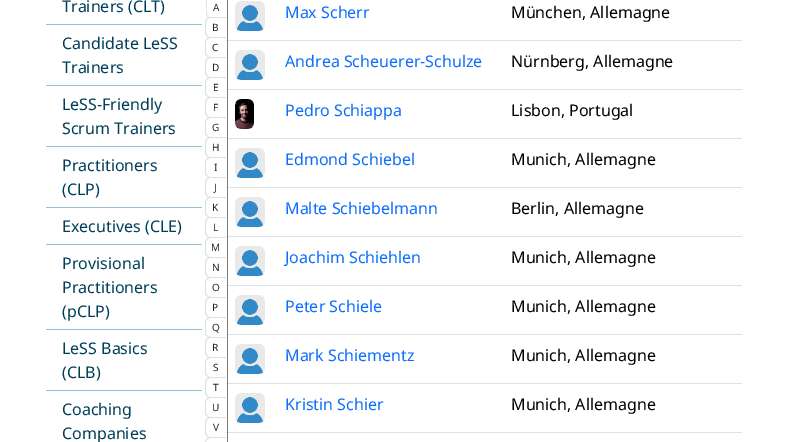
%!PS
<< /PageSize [787 442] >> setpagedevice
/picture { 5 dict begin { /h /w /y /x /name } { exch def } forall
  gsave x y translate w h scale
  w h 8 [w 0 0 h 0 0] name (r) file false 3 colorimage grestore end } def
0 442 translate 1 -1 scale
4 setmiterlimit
1 setgray
0 0 787 442 rectfill
0.58 0.753 0.824 setrgbcolor
46 24 156 1 rectfill
/NotoSans-Regular [16 0 0 -16 0 0] selectfont
0 0.247 0.349 setrgbcolor
62 12 moveto (Trainers \(CLT\)) show
0.58 0.753 0.824 setrgbcolor
46 85 156 1 rectfill
0 0.247 0.349 setrgbcolor
62 49 moveto (Candidate LeSS) show
62 73 moveto (Trainers) show
0.58 0.753 0.824 setrgbcolor
46 146 156 1 rectfill
0 0.247 0.349 setrgbcolor
62 110 moveto (LeSS-Friendly) show
62 134 moveto (Scrum Trainers) show
0.58 0.753 0.824 setrgbcolor
46 207 156 1 rectfill
0 0.247 0.349 setrgbcolor
62 171 moveto (Practitioners) show
62 195 moveto (\(CLP\)) show
0.58 0.753 0.824 setrgbcolor
46 244 156 1 rectfill
0 0.247 0.349 setrgbcolor
62 232 moveto (Executives \(CLE\)) show
0.58 0.753 0.824 setrgbcolor
46 329 156 1 rectfill
0 0.247 0.349 setrgbcolor
62 269 moveto (Provisional) show
62 293 moveto (Practitioners) show
62 317 moveto (\(pCLP\)) show
0.58 0.753 0.824 setrgbcolor
46 390 156 1 rectfill
0 0.247 0.349 setrgbcolor
62 354 moveto (LeSS Basics) show
62 378 moveto (\(CLB\)) show
62 415 moveto (Coaching) show
62 439 moveto (Companies) show
0.871 0.886 0.902 setrgbcolor
225 40 517 1 rectfill
225 89 517 1 rectfill
225 138 517 1 rectfill
225 187 517 1 rectfill
225 236 517 1 rectfill
225 285 517 1 rectfill
225 334 517 1 rectfill
225 383 517 1 rectfill
225 432 517 1 rectfill
0.502 setgray
227 0 1 442 rectfill
0.871 0.886 0.902 setrgbcolor
newpath 210 -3 moveto 227 -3 lineto 227 18 lineto 210 18 lineto 208 18 206 16 206 14 curveto 206 1 lineto 206 -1 208 -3 210 -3 curveto closepath 210 -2 moveto 227 -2 lineto 227 17 lineto 210 17 lineto 208.5 17 207 15.5 207 14 curveto 207 1 lineto 207 -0.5 208.5 -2 210 -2 curveto closepath eofill
/NotoSans-Regular [10 0 0 -10 0 0] selectfont
0.129 0.145 0.161 setrgbcolor
213 11 moveto (A) show
1 setgray
newpath 211 17 moveto 226 17 lineto 226 38 lineto 211 38 lineto 207.5 38 205 35.5 205 32 curveto 205 23 lineto 205 19.5 207.5 17 211 17 curveto closepath fill
0.871 0.886 0.902 setrgbcolor
newpath 211 17 moveto 226 17 lineto 226 38 lineto 211 38 lineto 207.5 38 205 35.5 205 32 curveto 205 23 lineto 205 19.5 207.5 17 211 17 curveto closepath 211 18 moveto 226 18 lineto 226 37 lineto 211 37 lineto 208 37 206 35 206 32 curveto 206 23 lineto 206 20 208 18 211 18 curveto closepath eofill
0.129 0.145 0.161 setrgbcolor
212 31 moveto (B) show
1 setgray
newpath 211 37 moveto 226 37 lineto 226 58 lineto 211 58 lineto 207.5 58 205 55.5 205 52 curveto 205 43 lineto 205 39.5 207.5 37 211 37 curveto closepath fill
0.871 0.886 0.902 setrgbcolor
newpath 211 37 moveto 226 37 lineto 226 58 lineto 211 58 lineto 207.5 58 205 55.5 205 52 curveto 205 43 lineto 205 39.5 207.5 37 211 37 curveto closepath 211 38 moveto 226 38 lineto 226 57 lineto 211 57 lineto 208 57 206 55 206 52 curveto 206 43 lineto 206 40 208 38 211 38 curveto closepath eofill
0.129 0.145 0.161 setrgbcolor
212 51 moveto (C) show
1 setgray
newpath 211 57 moveto 226 57 lineto 226 78 lineto 211 78 lineto 207.5 78 205 75.5 205 72 curveto 205 63 lineto 205 59.5 207.5 57 211 57 curveto closepath fill
0.871 0.886 0.902 setrgbcolor
newpath 211 57 moveto 226 57 lineto 226 78 lineto 211 78 lineto 207.5 78 205 75.5 205 72 curveto 205 63 lineto 205 59.5 207.5 57 211 57 curveto closepath 211 58 moveto 226 58 lineto 226 77 lineto 211 77 lineto 208 77 206 75 206 72 curveto 206 63 lineto 206 60 208 58 211 58 curveto closepath eofill
0.129 0.145 0.161 setrgbcolor
212 71 moveto (D) show
1 setgray
newpath 211 77 moveto 226 77 lineto 226 98 lineto 211 98 lineto 207.5 98 205 95.5 205 92 curveto 205 83 lineto 205 79.5 207.5 77 211 77 curveto closepath fill
0.871 0.886 0.902 setrgbcolor
newpath 211 77 moveto 226 77 lineto 226 98 lineto 211 98 lineto 207.5 98 205 95.5 205 92 curveto 205 83 lineto 205 79.5 207.5 77 211 77 curveto closepath 211 78 moveto 226 78 lineto 226 97 lineto 211 97 lineto 208 97 206 95 206 92 curveto 206 83 lineto 206 80 208 78 211 78 curveto closepath eofill
0.129 0.145 0.161 setrgbcolor
213 91 moveto (E) show
1 setgray
newpath 211 97 moveto 226 97 lineto 226 118 lineto 211 118 lineto 207.5 118 205 115.5 205 112 curveto 205 103 lineto 205 99.5 207.5 97 211 97 curveto closepath fill
0.871 0.886 0.902 setrgbcolor
newpath 211 97 moveto 226 97 lineto 226 118 lineto 211 118 lineto 207.5 118 205 115.5 205 112 curveto 205 103 lineto 205 99.5 207.5 97 211 97 curveto closepath 211 98 moveto 226 98 lineto 226 117 lineto 211 117 lineto 208 117 206 115 206 112 curveto 206 103 lineto 206 100 208 98 211 98 curveto closepath eofill
0.129 0.145 0.161 setrgbcolor
213 111 moveto (F) show
1 setgray
newpath 211 117 moveto 226 117 lineto 226 138 lineto 211 138 lineto 207.5 138 205 135.5 205 132 curveto 205 123 lineto 205 119.5 207.5 117 211 117 curveto closepath fill
0.871 0.886 0.902 setrgbcolor
newpath 211 117 moveto 226 117 lineto 226 138 lineto 211 138 lineto 207.5 138 205 135.5 205 132 curveto 205 123 lineto 205 119.5 207.5 117 211 117 curveto closepath 211 118 moveto 226 118 lineto 226 137 lineto 211 137 lineto 208 137 206 135 206 132 curveto 206 123 lineto 206 120 208 118 211 118 curveto closepath eofill
0.129 0.145 0.161 setrgbcolor
212 131 moveto (G) show
1 setgray
newpath 211 137 moveto 226 137 lineto 226 158 lineto 211 158 lineto 207.5 158 205 155.5 205 152 curveto 205 143 lineto 205 139.5 207.5 137 211 137 curveto closepath fill
0.871 0.886 0.902 setrgbcolor
newpath 211 137 moveto 226 137 lineto 226 158 lineto 211 158 lineto 207.5 158 205 155.5 205 152 curveto 205 143 lineto 205 139.5 207.5 137 211 137 curveto closepath 211 138 moveto 226 138 lineto 226 157 lineto 211 157 lineto 208 157 206 155 206 152 curveto 206 143 lineto 206 140 208 138 211 138 curveto closepath eofill
0.129 0.145 0.161 setrgbcolor
212 151 moveto (H) show
1 setgray
newpath 211 157 moveto 226 157 lineto 226 178 lineto 211 178 lineto 207.5 178 205 175.5 205 172 curveto 205 163 lineto 205 159.5 207.5 157 211 157 curveto closepath fill
0.871 0.886 0.902 setrgbcolor
newpath 211 157 moveto 226 157 lineto 226 178 lineto 211 178 lineto 207.5 178 205 175.5 205 172 curveto 205 163 lineto 205 159.5 207.5 157 211 157 curveto closepath 211 158 moveto 226 158 lineto 226 177 lineto 211 177 lineto 208 177 206 175 206 172 curveto 206 163 lineto 206 160 208 158 211 158 curveto closepath eofill
0.129 0.145 0.161 setrgbcolor
214 171 moveto (I) show
1 setgray
newpath 211 177 moveto 226 177 lineto 226 198 lineto 211 198 lineto 207.5 198 205 195.5 205 192 curveto 205 183 lineto 205 179.5 207.5 177 211 177 curveto closepath fill
0.871 0.886 0.902 setrgbcolor
newpath 211 177 moveto 226 177 lineto 226 198 lineto 211 198 lineto 207.5 198 205 195.5 205 192 curveto 205 183 lineto 205 179.5 207.5 177 211 177 curveto closepath 211 178 moveto 226 178 lineto 226 197 lineto 211 197 lineto 208 197 206 195 206 192 curveto 206 183 lineto 206 180 208 178 211 178 curveto closepath eofill
0.129 0.145 0.161 setrgbcolor
214 191 moveto (J) show
1 setgray
newpath 211 197 moveto 226 197 lineto 226 218 lineto 211 218 lineto 207.5 218 205 215.5 205 212 curveto 205 203 lineto 205 199.5 207.5 197 211 197 curveto closepath fill
0.871 0.886 0.902 setrgbcolor
newpath 211 197 moveto 226 197 lineto 226 218 lineto 211 218 lineto 207.5 218 205 215.5 205 212 curveto 205 203 lineto 205 199.5 207.5 197 211 197 curveto closepath 211 198 moveto 226 198 lineto 226 217 lineto 211 217 lineto 208 217 206 215 206 212 curveto 206 203 lineto 206 200 208 198 211 198 curveto closepath eofill
0.129 0.145 0.161 setrgbcolor
212 211 moveto (K) show
1 setgray
newpath 211 217 moveto 226 217 lineto 226 238 lineto 211 238 lineto 207.5 238 205 235.5 205 232 curveto 205 223 lineto 205 219.5 207.5 217 211 217 curveto closepath fill
0.871 0.886 0.902 setrgbcolor
newpath 211 217 moveto 226 217 lineto 226 238 lineto 211 238 lineto 207.5 238 205 235.5 205 232 curveto 205 223 lineto 205 219.5 207.5 217 211 217 curveto closepath 211 218 moveto 226 218 lineto 226 237 lineto 211 237 lineto 208 237 206 235 206 232 curveto 206 223 lineto 206 220 208 218 211 218 curveto closepath eofill
0.129 0.145 0.161 setrgbcolor
213 231 moveto (L) show
1 setgray
newpath 211 237 moveto 226 237 lineto 226 258 lineto 211 258 lineto 207.5 258 205 255.5 205 252 curveto 205 243 lineto 205 239.5 207.5 237 211 237 curveto closepath fill
0.871 0.886 0.902 setrgbcolor
newpath 211 237 moveto 226 237 lineto 226 258 lineto 211 258 lineto 207.5 258 205 255.5 205 252 curveto 205 243 lineto 205 239.5 207.5 237 211 237 curveto closepath 211 238 moveto 226 238 lineto 226 257 lineto 211 257 lineto 208 257 206 255 206 252 curveto 206 243 lineto 206 240 208 238 211 238 curveto closepath eofill
0.129 0.145 0.161 setrgbcolor
211 251 moveto (M) show
1 setgray
newpath 211 257 moveto 226 257 lineto 226 278 lineto 211 278 lineto 207.5 278 205 275.5 205 272 curveto 205 263 lineto 205 259.5 207.5 257 211 257 curveto closepath fill
0.871 0.886 0.902 setrgbcolor
newpath 211 257 moveto 226 257 lineto 226 278 lineto 211 278 lineto 207.5 278 205 275.5 205 272 curveto 205 263 lineto 205 259.5 207.5 257 211 257 curveto closepath 211 258 moveto 226 258 lineto 226 277 lineto 211 277 lineto 208 277 206 275 206 272 curveto 206 263 lineto 206 260 208 258 211 258 curveto closepath eofill
0.129 0.145 0.161 setrgbcolor
212 271 moveto (N) show
1 setgray
newpath 211 277 moveto 226 277 lineto 226 298 lineto 211 298 lineto 207.5 298 205 295.5 205 292 curveto 205 283 lineto 205 279.5 207.5 277 211 277 curveto closepath fill
0.871 0.886 0.902 setrgbcolor
newpath 211 277 moveto 226 277 lineto 226 298 lineto 211 298 lineto 207.5 298 205 295.5 205 292 curveto 205 283 lineto 205 279.5 207.5 277 211 277 curveto closepath 211 278 moveto 226 278 lineto 226 297 lineto 211 297 lineto 208 297 206 295 206 292 curveto 206 283 lineto 206 280 208 278 211 278 curveto closepath eofill
0.129 0.145 0.161 setrgbcolor
212 291 moveto (O) show
1 setgray
newpath 211 297 moveto 226 297 lineto 226 318 lineto 211 318 lineto 207.5 318 205 315.5 205 312 curveto 205 303 lineto 205 299.5 207.5 297 211 297 curveto closepath fill
0.871 0.886 0.902 setrgbcolor
newpath 211 297 moveto 226 297 lineto 226 318 lineto 211 318 lineto 207.5 318 205 315.5 205 312 curveto 205 303 lineto 205 299.5 207.5 297 211 297 curveto closepath 211 298 moveto 226 298 lineto 226 317 lineto 211 317 lineto 208 317 206 315 206 312 curveto 206 303 lineto 206 300 208 298 211 298 curveto closepath eofill
0.129 0.145 0.161 setrgbcolor
212 311 moveto (P) show
1 setgray
newpath 211 317 moveto 226 317 lineto 226 338 lineto 211 338 lineto 207.5 338 205 335.5 205 332 curveto 205 323 lineto 205 319.5 207.5 317 211 317 curveto closepath fill
0.871 0.886 0.902 setrgbcolor
newpath 211 317 moveto 226 317 lineto 226 338 lineto 211 338 lineto 207.5 338 205 335.5 205 332 curveto 205 323 lineto 205 319.5 207.5 317 211 317 curveto closepath 211 318 moveto 226 318 lineto 226 337 lineto 211 337 lineto 208 337 206 335 206 332 curveto 206 323 lineto 206 320 208 318 211 318 curveto closepath eofill
0.129 0.145 0.161 setrgbcolor
212 331 moveto (Q) show
1 setgray
newpath 211 337 moveto 226 337 lineto 226 358 lineto 211 358 lineto 207.5 358 205 355.5 205 352 curveto 205 343 lineto 205 339.5 207.5 337 211 337 curveto closepath fill
0.871 0.886 0.902 setrgbcolor
newpath 211 337 moveto 226 337 lineto 226 358 lineto 211 358 lineto 207.5 358 205 355.5 205 352 curveto 205 343 lineto 205 339.5 207.5 337 211 337 curveto closepath 211 338 moveto 226 338 lineto 226 357 lineto 211 357 lineto 208 357 206 355 206 352 curveto 206 343 lineto 206 340 208 338 211 338 curveto closepath eofill
0.129 0.145 0.161 setrgbcolor
212 351 moveto (R) show
1 setgray
newpath 211 357 moveto 226 357 lineto 226 378 lineto 211 378 lineto 207.5 378 205 375.5 205 372 curveto 205 363 lineto 205 359.5 207.5 357 211 357 curveto closepath fill
0.871 0.886 0.902 setrgbcolor
newpath 211 357 moveto 226 357 lineto 226 378 lineto 211 378 lineto 207.5 378 205 375.5 205 372 curveto 205 363 lineto 205 359.5 207.5 357 211 357 curveto closepath 211 358 moveto 226 358 lineto 226 377 lineto 211 377 lineto 208 377 206 375 206 372 curveto 206 363 lineto 206 360 208 358 211 358 curveto closepath eofill
0.129 0.145 0.161 setrgbcolor
213 371 moveto (S) show
1 setgray
newpath 211 377 moveto 226 377 lineto 226 398 lineto 211 398 lineto 207.5 398 205 395.5 205 392 curveto 205 383 lineto 205 379.5 207.5 377 211 377 curveto closepath fill
0.871 0.886 0.902 setrgbcolor
newpath 211 377 moveto 226 377 lineto 226 398 lineto 211 398 lineto 207.5 398 205 395.5 205 392 curveto 205 383 lineto 205 379.5 207.5 377 211 377 curveto closepath 211 378 moveto 226 378 lineto 226 397 lineto 211 397 lineto 208 397 206 395 206 392 curveto 206 383 lineto 206 380 208 378 211 378 curveto closepath eofill
0.129 0.145 0.161 setrgbcolor
213 391 moveto (T) show
1 setgray
newpath 211 397 moveto 226 397 lineto 226 418 lineto 211 418 lineto 207.5 418 205 415.5 205 412 curveto 205 403 lineto 205 399.5 207.5 397 211 397 curveto closepath fill
0.871 0.886 0.902 setrgbcolor
newpath 211 397 moveto 226 397 lineto 226 418 lineto 211 418 lineto 207.5 418 205 415.5 205 412 curveto 205 403 lineto 205 399.5 207.5 397 211 397 curveto closepath 211 398 moveto 226 398 lineto 226 417 lineto 211 417 lineto 208 417 206 415 206 412 curveto 206 403 lineto 206 400 208 398 211 398 curveto closepath eofill
0.129 0.145 0.161 setrgbcolor
212 411 moveto (U) show
1 setgray
newpath 211 417 moveto 226 417 lineto 226 438 lineto 211 438 lineto 207.5 438 205 435.5 205 432 curveto 205 423 lineto 205 419.5 207.5 417 211 417 curveto closepath fill
0.871 0.886 0.902 setrgbcolor
newpath 211 417 moveto 226 417 lineto 226 438 lineto 211 438 lineto 207.5 438 205 435.5 205 432 curveto 205 423 lineto 205 419.5 207.5 417 211 417 curveto closepath 211 418 moveto 226 418 lineto 226 437 lineto 211 437 lineto 208 437 206 435 206 432 curveto 206 423 lineto 206 420 208 418 211 418 curveto closepath eofill
0.129 0.145 0.161 setrgbcolor
213 431 moveto (V) show
1 setgray
newpath 211 437 moveto 226 437 lineto 226 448 lineto 211 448 lineto 207.5 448 205 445.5 205 442 curveto 205 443 lineto 205 439.5 207.5 437 211 437 curveto closepath fill
0.871 0.886 0.902 setrgbcolor
newpath 211 437 moveto 226 437 lineto 226 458 lineto 211 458 lineto 207.5 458 205 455.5 205 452 curveto 205 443 lineto 205 439.5 207.5 437 211 437 curveto closepath 211 438 moveto 226 438 lineto 226 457 lineto 211 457 lineto 208 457 206 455 206 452 curveto 206 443 lineto 206 440 208 438 211 438 curveto closepath eofill
(img1.rgb) 235 1 30 30 picture
/NotoSans-Regular [16 0 0 -16 0 0] selectfont
0.051 0.431 0.992 setrgbcolor
285 18 moveto (Max Scherr) show
0 setgray
511 18 moveto (München, Allemagne) show
(img2.rgb) 235 50 30 30 picture
0.051 0.431 0.992 setrgbcolor
285 67 moveto (Andrea Scheuerer-Schulze) show
0 setgray
511 67 moveto (Nürnberg, Allemagne) show
(img3.rgb) 235 99 19 30 picture
0.051 0.431 0.992 setrgbcolor
285 116 moveto (Pedro Schiappa) show
0 setgray
511 116 moveto (Lisbon, Portugal) show
(img2.rgb) 235 148 30 30 picture
0.051 0.431 0.992 setrgbcolor
285 165 moveto (Edmond Schiebel) show
0 setgray
511 165 moveto (Munich, Allemagne) show
(img2.rgb) 235 197 30 30 picture
0.051 0.431 0.992 setrgbcolor
285 214 moveto (Malte Schiebelmann) show
0 setgray
511 214 moveto (Berlin, Allemagne) show
(img4.rgb) 235 246 30 30 picture
0.051 0.431 0.992 setrgbcolor
285 263 moveto (Joachim Schiehlen) show
0 setgray
511 263 moveto (Munich, Allemagne) show
(img2.rgb) 235 295 30 30 picture
0.051 0.431 0.992 setrgbcolor
285 312 moveto (Peter Schiele) show
0 setgray
511 312 moveto (Munich, Allemagne) show
(img2.rgb) 235 344 30 30 picture
0.051 0.431 0.992 setrgbcolor
285 361 moveto (Mark Schiementz) show
0 setgray
511 361 moveto (Munich, Allemagne) show
(img5.rgb) 235 393 30 30 picture
0.051 0.431 0.992 setrgbcolor
285 410 moveto (Kristin Schier) show
0 setgray
511 410 moveto (Munich, Allemagne) show
showpage
